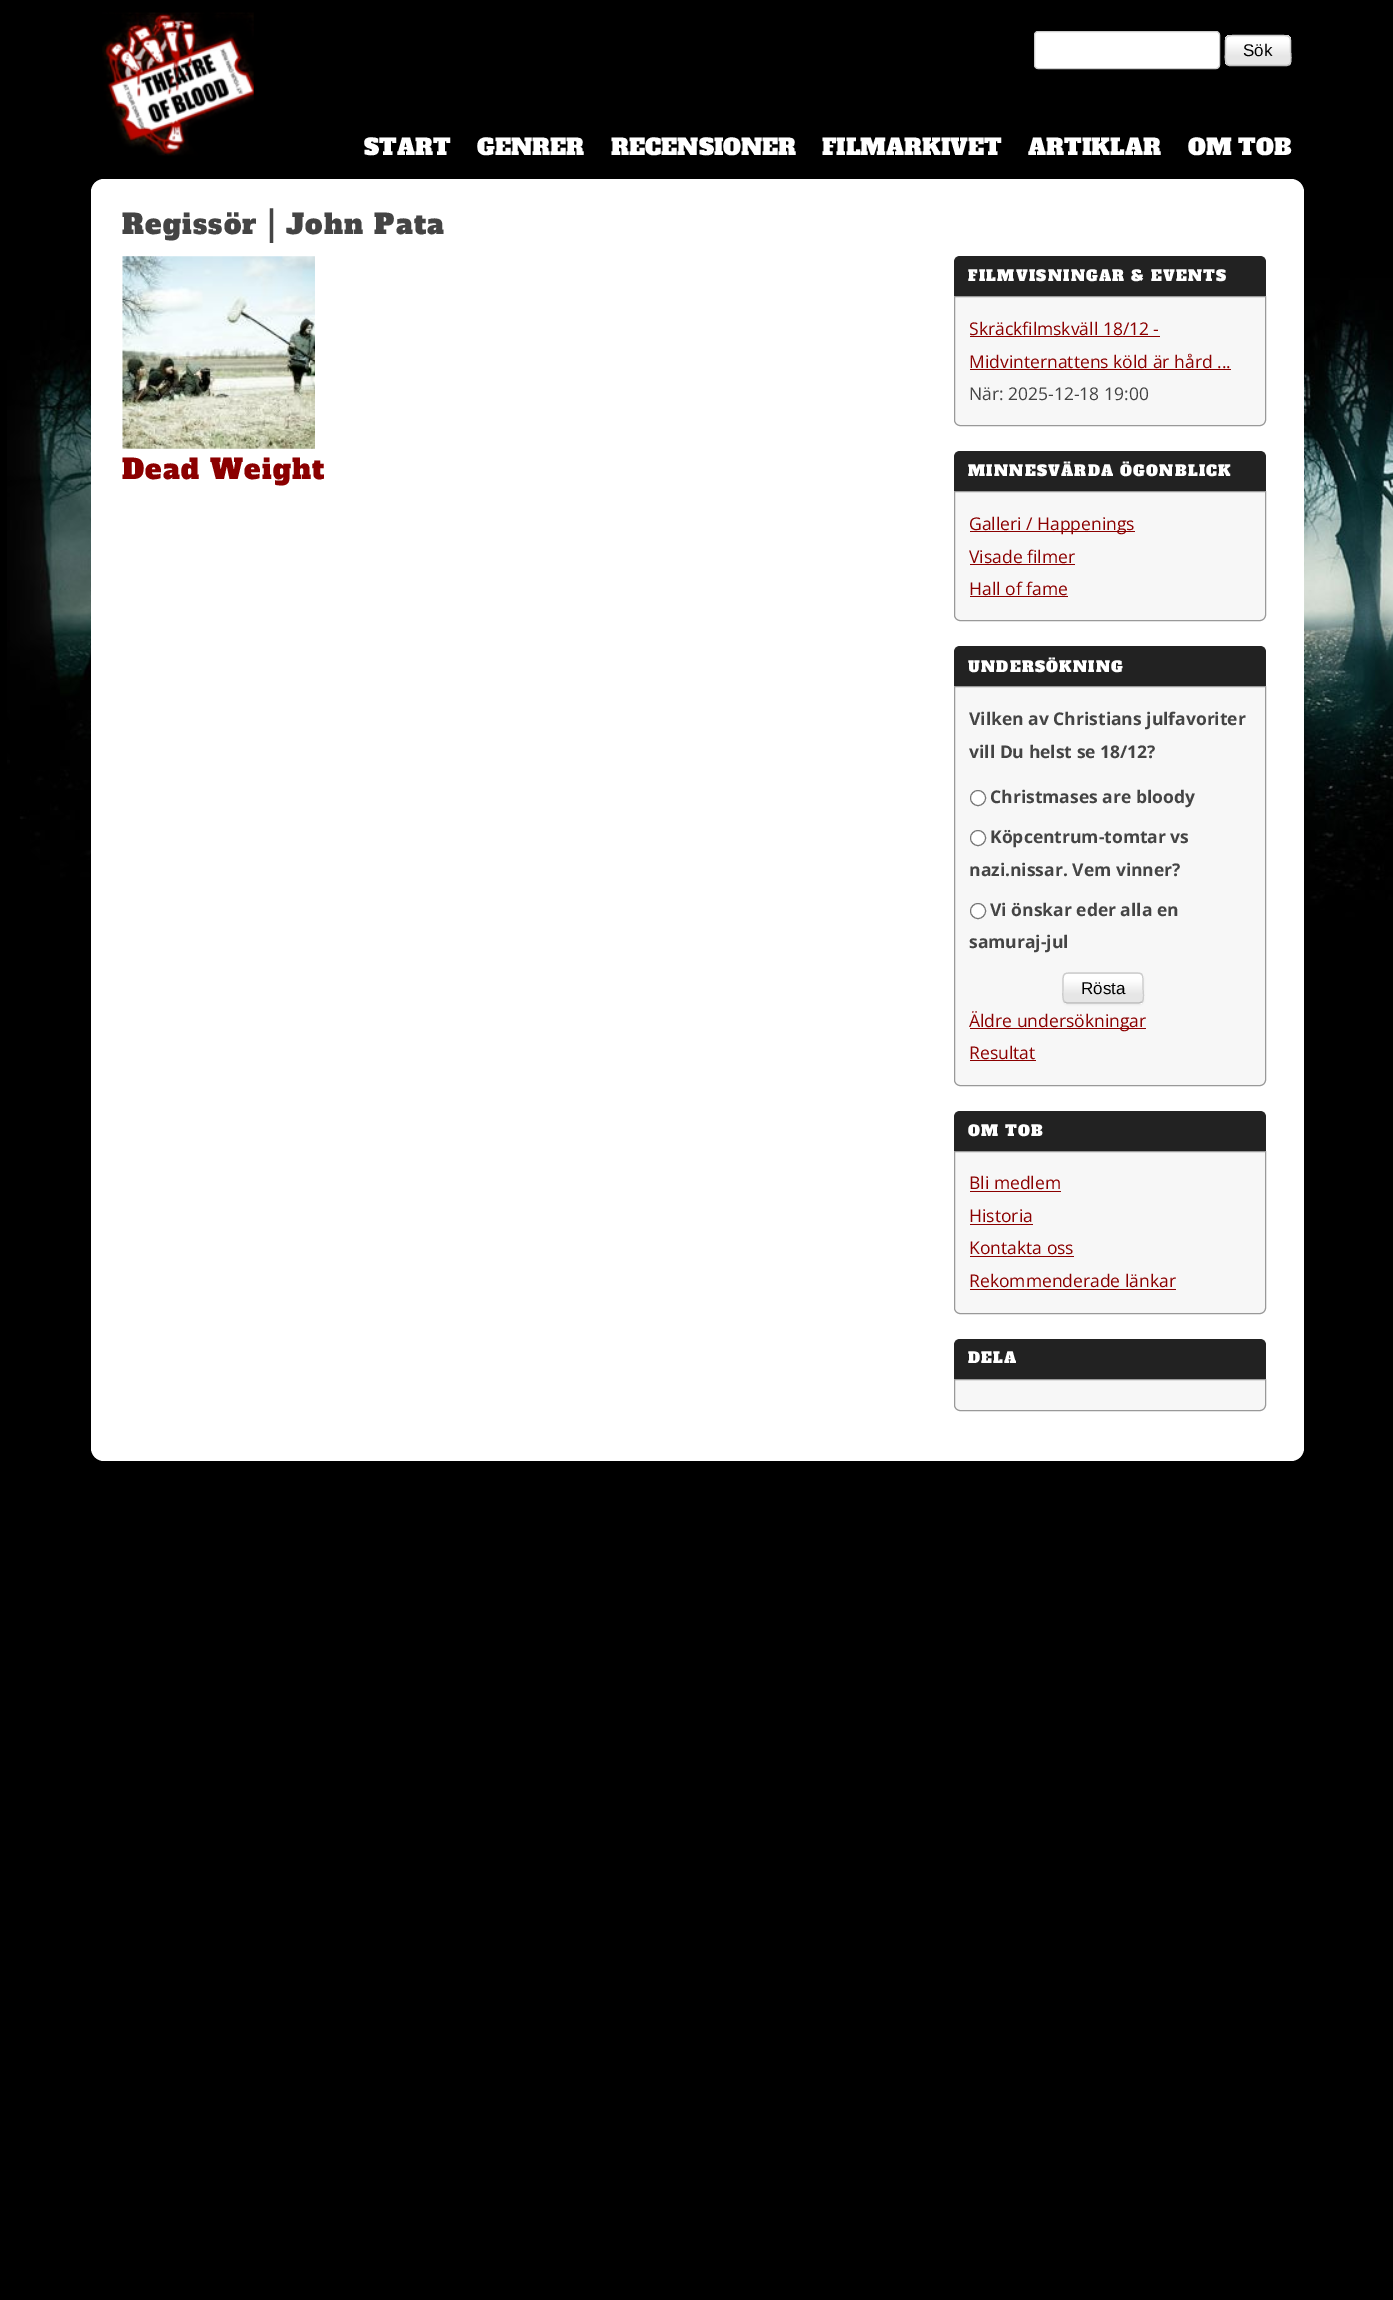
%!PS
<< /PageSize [1393 2300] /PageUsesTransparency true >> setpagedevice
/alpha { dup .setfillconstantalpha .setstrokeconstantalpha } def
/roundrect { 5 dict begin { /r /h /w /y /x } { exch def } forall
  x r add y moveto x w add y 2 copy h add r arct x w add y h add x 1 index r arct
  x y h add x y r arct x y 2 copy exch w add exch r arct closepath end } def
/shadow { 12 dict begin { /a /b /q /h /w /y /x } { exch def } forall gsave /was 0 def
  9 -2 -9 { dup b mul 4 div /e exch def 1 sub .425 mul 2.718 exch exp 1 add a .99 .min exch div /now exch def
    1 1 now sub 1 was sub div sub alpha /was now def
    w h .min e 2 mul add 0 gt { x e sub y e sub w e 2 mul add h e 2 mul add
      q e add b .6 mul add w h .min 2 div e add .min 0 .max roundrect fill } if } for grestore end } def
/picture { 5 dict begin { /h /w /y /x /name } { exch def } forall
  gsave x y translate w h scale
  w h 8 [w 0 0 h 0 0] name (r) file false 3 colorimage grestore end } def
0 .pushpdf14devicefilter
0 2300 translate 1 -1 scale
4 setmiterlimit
0 setgray
0 0 1393 2300 rectfill
(img1.rgb) 7 278 1386 642 picture
(img2.rgb) 102 12 152 144 picture
1 setgray
1034.5 31.5 185 37 3.5 roundrect gsave fill grestore
0.8 setgray
stroke
gsave
1225 35 66 31 5 roundrect clip newpath
gsave newpath 1225 35 moveto 1291 35 lineto 1291 36 lineto 1225 36 lineto closepath clip newpath
<< /ShadingType 2 /ColorSpace /DeviceRGB /Coords [1226 36 1226 7.5] /Extend [true true] /Function << /FunctionType 3 /Domain [0 1] /Functions [<< /FunctionType 2 /Domain [0 1] /C0 [0.902 0.902 0.902] /C1 [0.902 0.902 0.902] /N 1 >> << /FunctionType 2 /Domain [0 1] /C0 [0.902 0.902 0.902] /C1 [1 1 1] /N 1 >> << /FunctionType 2 /Domain [0 1] /C0 [1 1 1] /C1 [1 1 1] /N 1 >>] /Bounds [0.3 0.8] /Encode [0 1 0 1 0 1] >> >> shfill grestore
gsave newpath 1225 36 moveto 1291 36 lineto 1291 65 lineto 1225 65 lineto closepath clip newpath
<< /ShadingType 2 /ColorSpace /DeviceRGB /Coords [1226 65 1226 36] /Extend [true true] /Function << /FunctionType 3 /Domain [0 1] /Functions [<< /FunctionType 2 /Domain [0 1] /C0 [0.902 0.902 0.902] /C1 [0.902 0.902 0.902] /N 1 >> << /FunctionType 2 /Domain [0 1] /C0 [0.902 0.902 0.902] /C1 [1 1 1] /N 1 >> << /FunctionType 2 /Domain [0 1] /C0 [1 1 1] /C1 [1 1 1] /N 1 >>] /Bounds [0.3 0.8] /Encode [0 1 0 1 0 1] >> >> shfill grestore
grestore
1 setgray
newpath 1230 38 moveto 1286 38 lineto 1288 38 1290 39 1290 41 curveto 1290 34 1282 36 1277 36 curveto 1239 36 lineto 1234 36 1226 34 1226 41 curveto 1226 39 1228 38 1230 38 curveto closepath fill
0.733 setgray
1.2 setlinewidth
newpath 1289.5 64.5 moveto 1288.5 65 1287.5 65.5 1286 65.5 curveto 1230 65.5 lineto 1229 65.5 1227.5 65 1227 64.5 curveto stroke
0.8 setgray
newpath 1227 64.5 moveto 1224.5 61.5 1225.5 54 1225.5 50.5 curveto 1225.5 35 1223.5 35.5 1239.5 35.5 curveto 1277 35.5 lineto 1292.5 35.5 1290.5 35 1290.5 50.5 curveto 1290.5 54 1292 61.5 1289.5 64.5 curveto stroke
/LiberationSans-Regular [17 0 0 -17 0 0] selectfont
0 setgray
1243 56 moveto (Sök) show
/AlfaSlabOne-Regular [22.5 0 0 -22.5 0 0] selectfont
1 setgray
364 155 moveto (START) show
477 155 moveto (GENRER) show
611 155 moveto (RECENSIONER) show
822 155 moveto (FILMARKIVET) show
1028 155 moveto (ARTIKLAR) show
1188 155 moveto (OM TOB) show
91 179 1213 1282 13 roundrect fill
/AlfaSlabOne-Regular [27.5 0 0 -27.5 0 0] selectfont
0.267 setgray
122 234 moveto 1.25 0 (Regissör | John Pata) ashow
(img3.rgb) 122 256 193 193 picture
0.545 0 0 setrgbcolor
122 479 moveto 1.25 0 (Dead Weight) ashow
0.133 setgray
newpath 960 256 moveto 1260 256 lineto 1263.5 256 1266 258.5 1266 262 curveto 1266 296 lineto 954 296 lineto 954 262 lineto 954 258.5 956.5 256 960 256 curveto closepath fill
/AlfaSlabOne-Regular [15 0 0 -15 0 0] selectfont
1 setgray
968 281 moveto 1.25 0 (FILMVISNINGAR & EVENTS) ashow
0.969 setgray
newpath 954.5 296.5 moveto 1265.5 296.5 lineto 1265.5 420 lineto 1265.5 423 1263 425.5 1260 425.5 curveto 960 425.5 lineto 957 425.5 954.5 423 954.5 420 curveto closepath gsave fill grestore
0.6 setgray
1 setlinewidth
stroke
/OpenSans-Regular [17.5 0 0 -17.5 0 0] selectfont
0.545 0 0 setrgbcolor
969 335 moveto (Skräckfilmskväll 18/12 -) show
970 336 190 1 rectfill
969 368 moveto (Midvinternattens köld är hård ...) show
970 369 261 1 rectfill
0.267 setgray
969 400 moveto (När: 2025-12-18 19:00) show
0.133 setgray
newpath 960 451 moveto 1260 451 lineto 1263.5 451 1266 453.5 1266 457 curveto 1266 491 lineto 954 491 lineto 954 457 lineto 954 453.5 956.5 451 960 451 curveto closepath fill
/AlfaSlabOne-Regular [15 0 0 -15 0 0] selectfont
1 setgray
968 476 moveto 1.25 0 (MINNESVÄRDA ÖGONBLICK) ashow
0.969 setgray
newpath 954.5 491.5 moveto 1265.5 491.5 lineto 1265.5 615 lineto 1265.5 618 1263 620.5 1260 620.5 curveto 960 620.5 lineto 957 620.5 954.5 618 954.5 615 curveto closepath gsave fill grestore
0.6 setgray
stroke
0.545 0 0 setrgbcolor
970 531 165 1 rectfill
/OpenSans-Regular [17.5 0 0 -17.5 0 0] selectfont
969 530 moveto (Galleri / Happenings) show
969 563 moveto (Visade filmer) show
970 564 105 1 rectfill
969 595 moveto (Hall of fame) show
970 596 98 1 rectfill
0.133 setgray
newpath 960 646 moveto 1260 646 lineto 1263.5 646 1266 648.5 1266 652 curveto 1266 686 lineto 954 686 lineto 954 652 lineto 954 648.5 956.5 646 960 646 curveto closepath fill
/AlfaSlabOne-Regular [15 0 0 -15 0 0] selectfont
1 setgray
968 672 moveto 1.25 0 (UNDERSÖKNING) ashow
0.969 setgray
newpath 954.5 686.5 moveto 1265.5 686.5 lineto 1265.5 1080 lineto 1265.5 1083 1263 1085.5 1260 1085.5 curveto 960 1085.5 lineto 957 1085.5 954.5 1083 954.5 1080 curveto closepath gsave fill grestore
0.6 setgray
stroke
/OpenSans-Bold [17.5 0 0 -17.5 0 0] selectfont
0.267 setgray
969 725 moveto (Vilken av Christians julfavoriter) show
969 758 moveto (vill Du helst se 18/12?) show
1 setgray
newpath 978 798 7.5 0 360 arc closepath gsave fill grestore
0.463 setgray
stroke
0.267 setgray
990 803 moveto (Christmases are bloody) show
1 setgray
newpath 978 838 7.5 0 360 arc closepath gsave fill grestore
0.463 setgray
stroke
0.267 setgray
990 843 moveto (Köpcentrum-tomtar vs) show
969 876 moveto (nazi.nissar. Vem vinner?) show
1 setgray
newpath 978 911 7.5 0 360 arc closepath gsave fill grestore
0.463 setgray
stroke
0.267 setgray
990 916 moveto (Vi önskar eder alla en) show
969 948 moveto (samuraj-jul) show
0 setgray
1063 974 81 31 5 1 0.05 shadow
gsave
1063 973 81 31 5 roundrect clip newpath
gsave newpath 1063 973 moveto 1144 973 lineto 1144 974 lineto 1063 974 lineto closepath clip newpath
<< /ShadingType 2 /ColorSpace /DeviceRGB /Coords [1064 974 1064 945] /Extend [true true] /Function << /FunctionType 3 /Domain [0 1] /Functions [<< /FunctionType 2 /Domain [0 1] /C0 [0.902 0.902 0.902] /C1 [0.902 0.902 0.902] /N 1 >> << /FunctionType 2 /Domain [0 1] /C0 [0.902 0.902 0.902] /C1 [1 1 1] /N 1 >> << /FunctionType 2 /Domain [0 1] /C0 [1 1 1] /C1 [1 1 1] /N 1 >>] /Bounds [0.3 0.8] /Encode [0 1 0 1 0 1] >> >> shfill grestore
gsave newpath 1063 974 moveto 1144 974 lineto 1144 1003 lineto 1063 1003 lineto closepath clip newpath
<< /ShadingType 2 /ColorSpace /DeviceRGB /Coords [1064 1003 1064 974] /Extend [true true] /Function << /FunctionType 3 /Domain [0 1] /Functions [<< /FunctionType 2 /Domain [0 1] /C0 [0.902 0.902 0.902] /C1 [0.902 0.902 0.902] /N 1 >> << /FunctionType 2 /Domain [0 1] /C0 [0.902 0.902 0.902] /C1 [1 1 1] /N 1 >> << /FunctionType 2 /Domain [0 1] /C0 [1 1 1] /C1 [1 1 1] /N 1 >>] /Bounds [0.3 0.8] /Encode [0 1 0 1 0 1] >> >> shfill grestore
gsave newpath 1063 1003 moveto 1144 1003 lineto 1144 1004 lineto 1063 1004 lineto closepath clip newpath
<< /ShadingType 2 /ColorSpace /DeviceRGB /Coords [1064 1031 1064 1003] /Extend [true true] /Function << /FunctionType 3 /Domain [0 1] /Functions [<< /FunctionType 2 /Domain [0 1] /C0 [0.902 0.902 0.902] /C1 [0.902 0.902 0.902] /N 1 >> << /FunctionType 2 /Domain [0 1] /C0 [0.902 0.902 0.902] /C1 [1 1 1] /N 1 >> << /FunctionType 2 /Domain [0 1] /C0 [1 1 1] /C1 [1 1 1] /N 1 >>] /Bounds [0.3 0.8] /Encode [0 1 0 1 0 1] >> >> shfill grestore
grestore
0.2 alpha
1 setgray
newpath 1068 975 moveto 1139 975 lineto 1143 975 1142 984 1142 986 curveto 1142 1002 lineto 1142 1001 1143 1000 1143 999 curveto 1143 978 lineto 1143 976 1141 974 1139 974 curveto 1068 974 lineto 1066 974 1064 976 1064 978 curveto 1064 979 lineto 1064 977 1065 975 1068 975 curveto closepath fill
1 alpha
0.733 setgray
1.2 setlinewidth
newpath 1142 1002 moveto 1139 1003 lineto 1067 1003 lineto 1064.5 1002 lineto stroke
0.8 setgray
newpath 1064.5 1002 moveto 1062 999 1063 991.5 1063 988 curveto 1063 971 1061.5 973 1079.5 973 curveto 1127 973 lineto 1144.5 973 1143 971 1143 988 curveto 1143 991.5 1144.5 999 1142 1002 curveto stroke
/LiberationSans-Regular [17 0 0 -17 0 0] selectfont
0 setgray
1081 994 moveto (Rösta) show
0.545 0 0 setrgbcolor
970 1028 176 1 rectfill
/OpenSans-Regular [17.5 0 0 -17.5 0 0] selectfont
969 1027 moveto (Äldre undersökningar) show
969 1059 moveto (Resultat) show
970 1060 66 1 rectfill
0.133 setgray
newpath 960 1111 moveto 1260 1111 lineto 1263.5 1111 1266 1113.5 1266 1117 curveto 1266 1151 lineto 954 1151 lineto 954 1117 lineto 954 1113.5 956.5 1111 960 1111 curveto closepath fill
/AlfaSlabOne-Regular [15 0 0 -15 0 0] selectfont
1 setgray
968 1136 moveto 1.25 0 (OM TOB) ashow
0.969 setgray
newpath 954.5 1151.5 moveto 1265.5 1151.5 lineto 1265.5 1308 lineto 1265.5 1311 1263 1313.5 1260 1313.5 curveto 960 1313.5 lineto 957 1313.5 954.5 1311 954.5 1308 curveto closepath gsave fill grestore
0.6 setgray
1 setlinewidth
stroke
/OpenSans-Regular [17.5 0 0 -17.5 0 0] selectfont
0.545 0 0 setrgbcolor
969 1189 moveto (Bli medlem) show
970 1191 91 1 rectfill
969 1222 moveto (Historia) show
970 1224 63 1 rectfill
969 1254 moveto (Kontakta oss) show
970 1256 104 1 rectfill
969 1287 moveto (Rekommenderade länkar) show
970 1289 206 1 rectfill
0.133 setgray
newpath 960 1339 moveto 1260 1339 lineto 1263.5 1339 1266 1341.5 1266 1345 curveto 1266 1379 lineto 954 1379 lineto 954 1345 lineto 954 1341.5 956.5 1339 960 1339 curveto closepath fill
/AlfaSlabOne-Regular [15 0 0 -15 0 0] selectfont
1 setgray
968 1363 moveto 1.25 0 (DELA) ashow
0.969 setgray
newpath 954.5 1379.5 moveto 1265.5 1379.5 lineto 1265.5 1405 lineto 1265.5 1408 1263 1410.5 1260 1410.5 curveto 960 1410.5 lineto 957 1410.5 954.5 1408 954.5 1405 curveto closepath gsave fill grestore
0.6 setgray
stroke
.poppdf14devicefilter showpage
